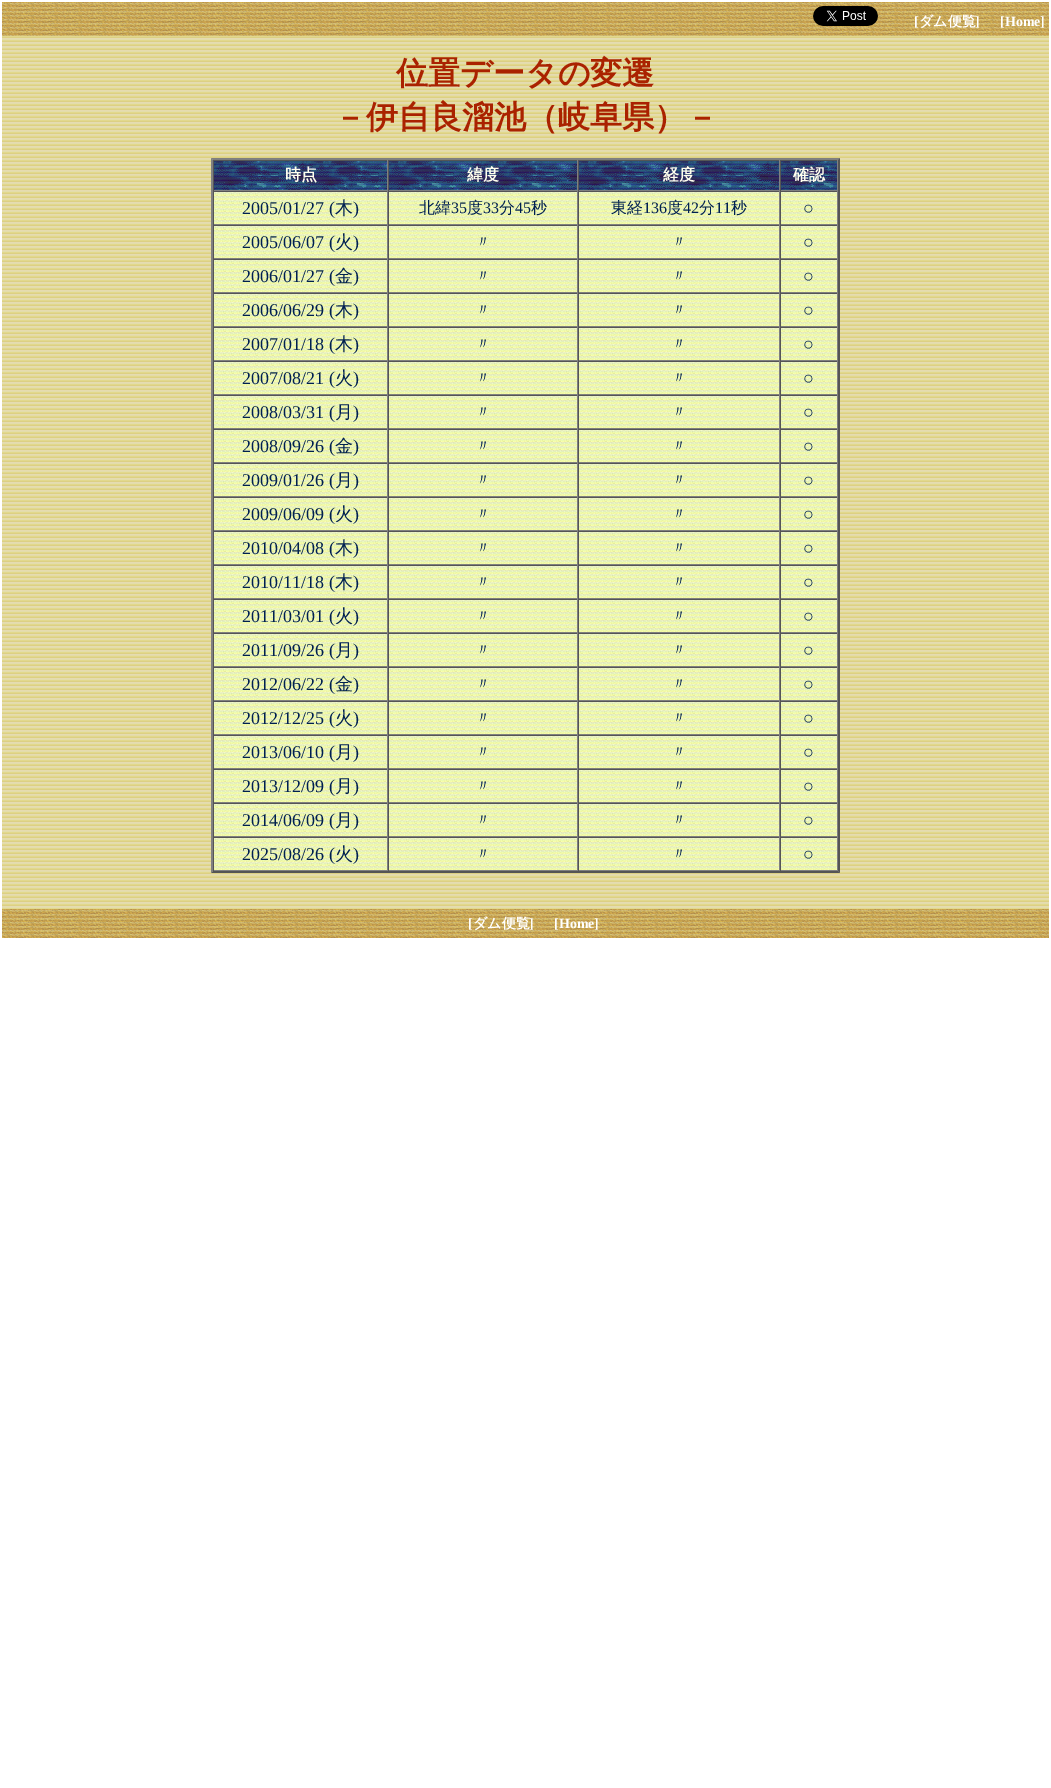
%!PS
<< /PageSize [1051 1788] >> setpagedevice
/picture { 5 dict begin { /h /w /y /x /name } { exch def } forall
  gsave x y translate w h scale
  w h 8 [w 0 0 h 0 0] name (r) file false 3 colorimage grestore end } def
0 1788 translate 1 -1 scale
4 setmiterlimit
1 setgray
0 0 1051 1788 rectfill
(img1.rgb) 2 36 1047 873 picture
(img2.rgb) 2 2 1047 34 picture
(img3.rgb) 813 6 65 20 picture
/LiberationSerif-Bold [14 0 0 -14 0 0] selectfont
914 26 moveto ([) show
/WenQuanYiZenHei-Bold [14 0 0 -14 0 0] selectfont
919 26 moveto (ダム便覧) show
/LiberationSerif-Bold [14 0 0 -14 0 0] selectfont
975 26 moveto (]) show
1000 26 moveto ([Home]) show
/WenQuanYiZenHei-Bold [32 0 0 -32 0 0] selectfont
0.667 0.133 0 setrgbcolor
396 84 moveto (位置データの変遷) show
334 128 moveto (－伊自良溜池（岐阜県）－) show
0.502 setgray
newpath 211 158 moveto 840 158 lineto 838 160 lineto 213 160 lineto closepath fill
0.333 setgray
newpath 840 158 moveto 840 873 lineto 838 871 lineto 838 160 lineto closepath fill
newpath 840 873 moveto 211 873 lineto 213 871 lineto 838 871 lineto closepath fill
0.502 setgray
newpath 211 873 moveto 211 158 lineto 213 160 lineto 213 871 lineto closepath fill
(img4.rgb) 214 161 173 29 picture
0.333 setgray
213 160 625 1 rectfill
0.502 setgray
387 160 1 31 rectfill
213 190 175 1 rectfill
0.333 setgray
213 160 1 31 rectfill
/WenQuanYiZenHei-Bold [16 0 0 -16 0 0] selectfont
1 1 0.933 setrgbcolor
285 180 moveto (時点) show
(img5.rgb) 389 161 188 29 picture
0.502 setgray
577 160 1 31 rectfill
388 190 190 1 rectfill
0.333 setgray
388 160 1 31 rectfill
1 1 0.933 setrgbcolor
467 180 moveto (緯度) show
(img6.rgb) 579 161 200 29 picture
0.502 setgray
779 160 1 31 rectfill
578 190 202 1 rectfill
0.333 setgray
578 160 1 31 rectfill
1 1 0.933 setrgbcolor
663 180 moveto (経度) show
(img7.rgb) 781 161 56 29 picture
0.502 setgray
837 160 1 31 rectfill
780 190 58 1 rectfill
0.333 setgray
780 160 1 31 rectfill
1 1 0.933 setrgbcolor
793 180 moveto (確認) show
(img8.rgb) 214 192 173 32 picture
0.333 setgray
213 191 625 1 rectfill
0.502 setgray
387 191 1 34 rectfill
213 224 175 1 rectfill
0.333 setgray
213 191 1 34 rectfill
/LiberationSerif-Regular [18 0 0 -18 0 0] selectfont
0 0.125 0.314 setrgbcolor
242 214 moveto (2005/01/27 \() show
/WenQuanYiZenHei-Medium [18 0 0 -18 0 0] selectfont
335 214 moveto (木) show
/LiberationSerif-Regular [18 0 0 -18 0 0] selectfont
353 214 moveto (\)) show
(img9.rgb) 389 192 188 32 picture
0.502 setgray
577 191 1 34 rectfill
388 224 190 1 rectfill
0.333 setgray
388 191 1 34 rectfill
/WenQuanYiZenHei-Medium [16 0 0 -16 0 0] selectfont
0 0.125 0.314 setrgbcolor
419 213 moveto (北緯) show
/LiberationSerif-Regular [16 0 0 -16 0 0] selectfont
451 213 moveto (35) show
/WenQuanYiZenHei-Medium [16 0 0 -16 0 0] selectfont
467 213 moveto (度) show
/LiberationSerif-Regular [16 0 0 -16 0 0] selectfont
483 213 moveto (33) show
/WenQuanYiZenHei-Medium [16 0 0 -16 0 0] selectfont
499 213 moveto (分) show
/LiberationSerif-Regular [16 0 0 -16 0 0] selectfont
515 213 moveto (45) show
/WenQuanYiZenHei-Medium [16 0 0 -16 0 0] selectfont
531 213 moveto (秒) show
(img10.rgb) 579 192 200 32 picture
0.502 setgray
779 191 1 34 rectfill
578 224 202 1 rectfill
0.333 setgray
578 191 1 34 rectfill
0 0.125 0.314 setrgbcolor
611 213 moveto (東経) show
/LiberationSerif-Regular [16 0 0 -16 0 0] selectfont
643 213 moveto (136) show
/WenQuanYiZenHei-Medium [16 0 0 -16 0 0] selectfont
667 213 moveto (度) show
/LiberationSerif-Regular [16 0 0 -16 0 0] selectfont
683 213 moveto (42) show
/WenQuanYiZenHei-Medium [16 0 0 -16 0 0] selectfont
699 213 moveto (分) show
/LiberationSerif-Regular [16 0 0 -16 0 0] selectfont
715 213 moveto (11) show
/WenQuanYiZenHei-Medium [16 0 0 -16 0 0] selectfont
731 213 moveto (秒) show
(img11.rgb) 781 192 56 32 picture
0.502 setgray
837 191 1 34 rectfill
780 224 58 1 rectfill
0.333 setgray
780 191 1 34 rectfill
/LiberationSerif-Regular [18 0 0 -18 0 0] selectfont
0 0.125 0.314 setrgbcolor
803 214 moveto (○) show
(img8.rgb) 214 226 173 32 picture
0.333 setgray
213 225 625 1 rectfill
0.502 setgray
387 225 1 34 rectfill
213 258 175 1 rectfill
0.333 setgray
213 225 1 34 rectfill
0 0.125 0.314 setrgbcolor
242 248 moveto (2005/06/07 \() show
/WenQuanYiZenHei-Medium [18 0 0 -18 0 0] selectfont
335 248 moveto (火) show
/LiberationSerif-Regular [18 0 0 -18 0 0] selectfont
353 248 moveto (\)) show
(img9.rgb) 389 226 188 32 picture
0.502 setgray
577 225 1 34 rectfill
388 258 190 1 rectfill
0.333 setgray
388 225 1 34 rectfill
/WenQuanYiZenHei-Medium [16 0 0 -16 0 0] selectfont
0 0.125 0.314 setrgbcolor
475 247 moveto (〃) show
(img10.rgb) 579 226 200 32 picture
0.502 setgray
779 225 1 34 rectfill
578 258 202 1 rectfill
0.333 setgray
578 225 1 34 rectfill
0 0.125 0.314 setrgbcolor
671 247 moveto (〃) show
(img11.rgb) 781 226 56 32 picture
0.502 setgray
837 225 1 34 rectfill
780 258 58 1 rectfill
0.333 setgray
780 225 1 34 rectfill
/LiberationSerif-Regular [18 0 0 -18 0 0] selectfont
0 0.125 0.314 setrgbcolor
803 248 moveto (○) show
(img8.rgb) 214 260 173 32 picture
0.333 setgray
213 259 625 1 rectfill
0.502 setgray
387 259 1 34 rectfill
213 292 175 1 rectfill
0.333 setgray
213 259 1 34 rectfill
0 0.125 0.314 setrgbcolor
242 282 moveto (2006/01/27 \() show
/WenQuanYiZenHei-Medium [18 0 0 -18 0 0] selectfont
335 282 moveto (金) show
/LiberationSerif-Regular [18 0 0 -18 0 0] selectfont
353 282 moveto (\)) show
(img9.rgb) 389 260 188 32 picture
0.502 setgray
577 259 1 34 rectfill
388 292 190 1 rectfill
0.333 setgray
388 259 1 34 rectfill
/WenQuanYiZenHei-Medium [16 0 0 -16 0 0] selectfont
0 0.125 0.314 setrgbcolor
475 281 moveto (〃) show
(img10.rgb) 579 260 200 32 picture
0.502 setgray
779 259 1 34 rectfill
578 292 202 1 rectfill
0.333 setgray
578 259 1 34 rectfill
0 0.125 0.314 setrgbcolor
671 281 moveto (〃) show
(img11.rgb) 781 260 56 32 picture
0.502 setgray
837 259 1 34 rectfill
780 292 58 1 rectfill
0.333 setgray
780 259 1 34 rectfill
/LiberationSerif-Regular [18 0 0 -18 0 0] selectfont
0 0.125 0.314 setrgbcolor
803 282 moveto (○) show
(img8.rgb) 214 294 173 32 picture
0.333 setgray
213 293 625 1 rectfill
0.502 setgray
387 293 1 34 rectfill
213 326 175 1 rectfill
0.333 setgray
213 293 1 34 rectfill
0 0.125 0.314 setrgbcolor
242 316 moveto (2006/06/29 \() show
/WenQuanYiZenHei-Medium [18 0 0 -18 0 0] selectfont
335 316 moveto (木) show
/LiberationSerif-Regular [18 0 0 -18 0 0] selectfont
353 316 moveto (\)) show
(img9.rgb) 389 294 188 32 picture
0.502 setgray
577 293 1 34 rectfill
388 326 190 1 rectfill
0.333 setgray
388 293 1 34 rectfill
/WenQuanYiZenHei-Medium [16 0 0 -16 0 0] selectfont
0 0.125 0.314 setrgbcolor
475 315 moveto (〃) show
(img10.rgb) 579 294 200 32 picture
0.502 setgray
779 293 1 34 rectfill
578 326 202 1 rectfill
0.333 setgray
578 293 1 34 rectfill
0 0.125 0.314 setrgbcolor
671 315 moveto (〃) show
(img11.rgb) 781 294 56 32 picture
0.502 setgray
837 293 1 34 rectfill
780 326 58 1 rectfill
0.333 setgray
780 293 1 34 rectfill
/LiberationSerif-Regular [18 0 0 -18 0 0] selectfont
0 0.125 0.314 setrgbcolor
803 316 moveto (○) show
(img8.rgb) 214 328 173 32 picture
0.333 setgray
213 327 625 1 rectfill
0.502 setgray
387 327 1 34 rectfill
213 360 175 1 rectfill
0.333 setgray
213 327 1 34 rectfill
0 0.125 0.314 setrgbcolor
242 350 moveto (2007/01/18 \() show
/WenQuanYiZenHei-Medium [18 0 0 -18 0 0] selectfont
335 350 moveto (木) show
/LiberationSerif-Regular [18 0 0 -18 0 0] selectfont
353 350 moveto (\)) show
(img9.rgb) 389 328 188 32 picture
0.502 setgray
577 327 1 34 rectfill
388 360 190 1 rectfill
0.333 setgray
388 327 1 34 rectfill
/WenQuanYiZenHei-Medium [16 0 0 -16 0 0] selectfont
0 0.125 0.314 setrgbcolor
475 349 moveto (〃) show
(img10.rgb) 579 328 200 32 picture
0.502 setgray
779 327 1 34 rectfill
578 360 202 1 rectfill
0.333 setgray
578 327 1 34 rectfill
0 0.125 0.314 setrgbcolor
671 349 moveto (〃) show
(img11.rgb) 781 328 56 32 picture
0.502 setgray
837 327 1 34 rectfill
780 360 58 1 rectfill
0.333 setgray
780 327 1 34 rectfill
/LiberationSerif-Regular [18 0 0 -18 0 0] selectfont
0 0.125 0.314 setrgbcolor
803 350 moveto (○) show
(img8.rgb) 214 362 173 32 picture
0.333 setgray
213 361 625 1 rectfill
0.502 setgray
387 361 1 34 rectfill
213 394 175 1 rectfill
0.333 setgray
213 361 1 34 rectfill
0 0.125 0.314 setrgbcolor
242 384 moveto (2007/08/21 \() show
/WenQuanYiZenHei-Medium [18 0 0 -18 0 0] selectfont
335 384 moveto (火) show
/LiberationSerif-Regular [18 0 0 -18 0 0] selectfont
353 384 moveto (\)) show
(img9.rgb) 389 362 188 32 picture
0.502 setgray
577 361 1 34 rectfill
388 394 190 1 rectfill
0.333 setgray
388 361 1 34 rectfill
/WenQuanYiZenHei-Medium [16 0 0 -16 0 0] selectfont
0 0.125 0.314 setrgbcolor
475 383 moveto (〃) show
(img10.rgb) 579 362 200 32 picture
0.502 setgray
779 361 1 34 rectfill
578 394 202 1 rectfill
0.333 setgray
578 361 1 34 rectfill
0 0.125 0.314 setrgbcolor
671 383 moveto (〃) show
(img11.rgb) 781 362 56 32 picture
0.502 setgray
837 361 1 34 rectfill
780 394 58 1 rectfill
0.333 setgray
780 361 1 34 rectfill
/LiberationSerif-Regular [18 0 0 -18 0 0] selectfont
0 0.125 0.314 setrgbcolor
803 384 moveto (○) show
(img8.rgb) 214 396 173 32 picture
0.333 setgray
213 395 625 1 rectfill
0.502 setgray
387 395 1 34 rectfill
213 428 175 1 rectfill
0.333 setgray
213 395 1 34 rectfill
0 0.125 0.314 setrgbcolor
242 418 moveto (2008/03/31 \() show
/WenQuanYiZenHei-Medium [18 0 0 -18 0 0] selectfont
335 418 moveto (月) show
/LiberationSerif-Regular [18 0 0 -18 0 0] selectfont
353 418 moveto (\)) show
(img9.rgb) 389 396 188 32 picture
0.502 setgray
577 395 1 34 rectfill
388 428 190 1 rectfill
0.333 setgray
388 395 1 34 rectfill
/WenQuanYiZenHei-Medium [16 0 0 -16 0 0] selectfont
0 0.125 0.314 setrgbcolor
475 417 moveto (〃) show
(img10.rgb) 579 396 200 32 picture
0.502 setgray
779 395 1 34 rectfill
578 428 202 1 rectfill
0.333 setgray
578 395 1 34 rectfill
0 0.125 0.314 setrgbcolor
671 417 moveto (〃) show
(img11.rgb) 781 396 56 32 picture
0.502 setgray
837 395 1 34 rectfill
780 428 58 1 rectfill
0.333 setgray
780 395 1 34 rectfill
/LiberationSerif-Regular [18 0 0 -18 0 0] selectfont
0 0.125 0.314 setrgbcolor
803 418 moveto (○) show
(img8.rgb) 214 430 173 32 picture
0.333 setgray
213 429 625 1 rectfill
0.502 setgray
387 429 1 34 rectfill
213 462 175 1 rectfill
0.333 setgray
213 429 1 34 rectfill
0 0.125 0.314 setrgbcolor
242 452 moveto (2008/09/26 \() show
/WenQuanYiZenHei-Medium [18 0 0 -18 0 0] selectfont
335 452 moveto (金) show
/LiberationSerif-Regular [18 0 0 -18 0 0] selectfont
353 452 moveto (\)) show
(img9.rgb) 389 430 188 32 picture
0.502 setgray
577 429 1 34 rectfill
388 462 190 1 rectfill
0.333 setgray
388 429 1 34 rectfill
/WenQuanYiZenHei-Medium [16 0 0 -16 0 0] selectfont
0 0.125 0.314 setrgbcolor
475 451 moveto (〃) show
(img10.rgb) 579 430 200 32 picture
0.502 setgray
779 429 1 34 rectfill
578 462 202 1 rectfill
0.333 setgray
578 429 1 34 rectfill
0 0.125 0.314 setrgbcolor
671 451 moveto (〃) show
(img11.rgb) 781 430 56 32 picture
0.502 setgray
837 429 1 34 rectfill
780 462 58 1 rectfill
0.333 setgray
780 429 1 34 rectfill
/LiberationSerif-Regular [18 0 0 -18 0 0] selectfont
0 0.125 0.314 setrgbcolor
803 452 moveto (○) show
(img8.rgb) 214 464 173 32 picture
0.333 setgray
213 463 625 1 rectfill
0.502 setgray
387 463 1 34 rectfill
213 496 175 1 rectfill
0.333 setgray
213 463 1 34 rectfill
0 0.125 0.314 setrgbcolor
242 486 moveto (2009/01/26 \() show
/WenQuanYiZenHei-Medium [18 0 0 -18 0 0] selectfont
335 486 moveto (月) show
/LiberationSerif-Regular [18 0 0 -18 0 0] selectfont
353 486 moveto (\)) show
(img9.rgb) 389 464 188 32 picture
0.502 setgray
577 463 1 34 rectfill
388 496 190 1 rectfill
0.333 setgray
388 463 1 34 rectfill
/WenQuanYiZenHei-Medium [16 0 0 -16 0 0] selectfont
0 0.125 0.314 setrgbcolor
475 485 moveto (〃) show
(img10.rgb) 579 464 200 32 picture
0.502 setgray
779 463 1 34 rectfill
578 496 202 1 rectfill
0.333 setgray
578 463 1 34 rectfill
0 0.125 0.314 setrgbcolor
671 485 moveto (〃) show
(img11.rgb) 781 464 56 32 picture
0.502 setgray
837 463 1 34 rectfill
780 496 58 1 rectfill
0.333 setgray
780 463 1 34 rectfill
/LiberationSerif-Regular [18 0 0 -18 0 0] selectfont
0 0.125 0.314 setrgbcolor
803 486 moveto (○) show
(img8.rgb) 214 498 173 32 picture
0.333 setgray
213 497 625 1 rectfill
0.502 setgray
387 497 1 34 rectfill
213 530 175 1 rectfill
0.333 setgray
213 497 1 34 rectfill
0 0.125 0.314 setrgbcolor
242 520 moveto (2009/06/09 \() show
/WenQuanYiZenHei-Medium [18 0 0 -18 0 0] selectfont
335 520 moveto (火) show
/LiberationSerif-Regular [18 0 0 -18 0 0] selectfont
353 520 moveto (\)) show
(img9.rgb) 389 498 188 32 picture
0.502 setgray
577 497 1 34 rectfill
388 530 190 1 rectfill
0.333 setgray
388 497 1 34 rectfill
/WenQuanYiZenHei-Medium [16 0 0 -16 0 0] selectfont
0 0.125 0.314 setrgbcolor
475 519 moveto (〃) show
(img10.rgb) 579 498 200 32 picture
0.502 setgray
779 497 1 34 rectfill
578 530 202 1 rectfill
0.333 setgray
578 497 1 34 rectfill
0 0.125 0.314 setrgbcolor
671 519 moveto (〃) show
(img11.rgb) 781 498 56 32 picture
0.502 setgray
837 497 1 34 rectfill
780 530 58 1 rectfill
0.333 setgray
780 497 1 34 rectfill
/LiberationSerif-Regular [18 0 0 -18 0 0] selectfont
0 0.125 0.314 setrgbcolor
803 520 moveto (○) show
(img8.rgb) 214 532 173 32 picture
0.333 setgray
213 531 625 1 rectfill
0.502 setgray
387 531 1 34 rectfill
213 564 175 1 rectfill
0.333 setgray
213 531 1 34 rectfill
0 0.125 0.314 setrgbcolor
242 554 moveto (2010/04/08 \() show
/WenQuanYiZenHei-Medium [18 0 0 -18 0 0] selectfont
335 554 moveto (木) show
/LiberationSerif-Regular [18 0 0 -18 0 0] selectfont
353 554 moveto (\)) show
(img9.rgb) 389 532 188 32 picture
0.502 setgray
577 531 1 34 rectfill
388 564 190 1 rectfill
0.333 setgray
388 531 1 34 rectfill
/WenQuanYiZenHei-Medium [16 0 0 -16 0 0] selectfont
0 0.125 0.314 setrgbcolor
475 553 moveto (〃) show
(img10.rgb) 579 532 200 32 picture
0.502 setgray
779 531 1 34 rectfill
578 564 202 1 rectfill
0.333 setgray
578 531 1 34 rectfill
0 0.125 0.314 setrgbcolor
671 553 moveto (〃) show
(img11.rgb) 781 532 56 32 picture
0.502 setgray
837 531 1 34 rectfill
780 564 58 1 rectfill
0.333 setgray
780 531 1 34 rectfill
/LiberationSerif-Regular [18 0 0 -18 0 0] selectfont
0 0.125 0.314 setrgbcolor
803 554 moveto (○) show
(img8.rgb) 214 566 173 32 picture
0.333 setgray
213 565 625 1 rectfill
0.502 setgray
387 565 1 34 rectfill
213 598 175 1 rectfill
0.333 setgray
213 565 1 34 rectfill
0 0.125 0.314 setrgbcolor
242 588 moveto (2010/11/18 \() show
/WenQuanYiZenHei-Medium [18 0 0 -18 0 0] selectfont
335 588 moveto (木) show
/LiberationSerif-Regular [18 0 0 -18 0 0] selectfont
353 588 moveto (\)) show
(img9.rgb) 389 566 188 32 picture
0.502 setgray
577 565 1 34 rectfill
388 598 190 1 rectfill
0.333 setgray
388 565 1 34 rectfill
/WenQuanYiZenHei-Medium [16 0 0 -16 0 0] selectfont
0 0.125 0.314 setrgbcolor
475 587 moveto (〃) show
(img10.rgb) 579 566 200 32 picture
0.502 setgray
779 565 1 34 rectfill
578 598 202 1 rectfill
0.333 setgray
578 565 1 34 rectfill
0 0.125 0.314 setrgbcolor
671 587 moveto (〃) show
(img11.rgb) 781 566 56 32 picture
0.502 setgray
837 565 1 34 rectfill
780 598 58 1 rectfill
0.333 setgray
780 565 1 34 rectfill
/LiberationSerif-Regular [18 0 0 -18 0 0] selectfont
0 0.125 0.314 setrgbcolor
803 588 moveto (○) show
(img8.rgb) 214 600 173 32 picture
0.333 setgray
213 599 625 1 rectfill
0.502 setgray
387 599 1 34 rectfill
213 632 175 1 rectfill
0.333 setgray
213 599 1 34 rectfill
0 0.125 0.314 setrgbcolor
242 622 moveto (2011/03/01 \() show
/WenQuanYiZenHei-Medium [18 0 0 -18 0 0] selectfont
335 622 moveto (火) show
/LiberationSerif-Regular [18 0 0 -18 0 0] selectfont
353 622 moveto (\)) show
(img9.rgb) 389 600 188 32 picture
0.502 setgray
577 599 1 34 rectfill
388 632 190 1 rectfill
0.333 setgray
388 599 1 34 rectfill
/WenQuanYiZenHei-Medium [16 0 0 -16 0 0] selectfont
0 0.125 0.314 setrgbcolor
475 621 moveto (〃) show
(img10.rgb) 579 600 200 32 picture
0.502 setgray
779 599 1 34 rectfill
578 632 202 1 rectfill
0.333 setgray
578 599 1 34 rectfill
0 0.125 0.314 setrgbcolor
671 621 moveto (〃) show
(img11.rgb) 781 600 56 32 picture
0.502 setgray
837 599 1 34 rectfill
780 632 58 1 rectfill
0.333 setgray
780 599 1 34 rectfill
/LiberationSerif-Regular [18 0 0 -18 0 0] selectfont
0 0.125 0.314 setrgbcolor
803 622 moveto (○) show
(img8.rgb) 214 634 173 32 picture
0.333 setgray
213 633 625 1 rectfill
0.502 setgray
387 633 1 34 rectfill
213 666 175 1 rectfill
0.333 setgray
213 633 1 34 rectfill
0 0.125 0.314 setrgbcolor
242 656 moveto (2011/09/26 \() show
/WenQuanYiZenHei-Medium [18 0 0 -18 0 0] selectfont
335 656 moveto (月) show
/LiberationSerif-Regular [18 0 0 -18 0 0] selectfont
353 656 moveto (\)) show
(img9.rgb) 389 634 188 32 picture
0.502 setgray
577 633 1 34 rectfill
388 666 190 1 rectfill
0.333 setgray
388 633 1 34 rectfill
/WenQuanYiZenHei-Medium [16 0 0 -16 0 0] selectfont
0 0.125 0.314 setrgbcolor
475 655 moveto (〃) show
(img10.rgb) 579 634 200 32 picture
0.502 setgray
779 633 1 34 rectfill
578 666 202 1 rectfill
0.333 setgray
578 633 1 34 rectfill
0 0.125 0.314 setrgbcolor
671 655 moveto (〃) show
(img11.rgb) 781 634 56 32 picture
0.502 setgray
837 633 1 34 rectfill
780 666 58 1 rectfill
0.333 setgray
780 633 1 34 rectfill
/LiberationSerif-Regular [18 0 0 -18 0 0] selectfont
0 0.125 0.314 setrgbcolor
803 656 moveto (○) show
(img8.rgb) 214 668 173 32 picture
0.333 setgray
213 667 625 1 rectfill
0.502 setgray
387 667 1 34 rectfill
213 700 175 1 rectfill
0.333 setgray
213 667 1 34 rectfill
0 0.125 0.314 setrgbcolor
242 690 moveto (2012/06/22 \() show
/WenQuanYiZenHei-Medium [18 0 0 -18 0 0] selectfont
335 690 moveto (金) show
/LiberationSerif-Regular [18 0 0 -18 0 0] selectfont
353 690 moveto (\)) show
(img9.rgb) 389 668 188 32 picture
0.502 setgray
577 667 1 34 rectfill
388 700 190 1 rectfill
0.333 setgray
388 667 1 34 rectfill
/WenQuanYiZenHei-Medium [16 0 0 -16 0 0] selectfont
0 0.125 0.314 setrgbcolor
475 689 moveto (〃) show
(img10.rgb) 579 668 200 32 picture
0.502 setgray
779 667 1 34 rectfill
578 700 202 1 rectfill
0.333 setgray
578 667 1 34 rectfill
0 0.125 0.314 setrgbcolor
671 689 moveto (〃) show
(img11.rgb) 781 668 56 32 picture
0.502 setgray
837 667 1 34 rectfill
780 700 58 1 rectfill
0.333 setgray
780 667 1 34 rectfill
/LiberationSerif-Regular [18 0 0 -18 0 0] selectfont
0 0.125 0.314 setrgbcolor
803 690 moveto (○) show
(img8.rgb) 214 702 173 32 picture
0.333 setgray
213 701 625 1 rectfill
0.502 setgray
387 701 1 34 rectfill
213 734 175 1 rectfill
0.333 setgray
213 701 1 34 rectfill
0 0.125 0.314 setrgbcolor
242 724 moveto (2012/12/25 \() show
/WenQuanYiZenHei-Medium [18 0 0 -18 0 0] selectfont
335 724 moveto (火) show
/LiberationSerif-Regular [18 0 0 -18 0 0] selectfont
353 724 moveto (\)) show
(img9.rgb) 389 702 188 32 picture
0.502 setgray
577 701 1 34 rectfill
388 734 190 1 rectfill
0.333 setgray
388 701 1 34 rectfill
/WenQuanYiZenHei-Medium [16 0 0 -16 0 0] selectfont
0 0.125 0.314 setrgbcolor
475 723 moveto (〃) show
(img10.rgb) 579 702 200 32 picture
0.502 setgray
779 701 1 34 rectfill
578 734 202 1 rectfill
0.333 setgray
578 701 1 34 rectfill
0 0.125 0.314 setrgbcolor
671 723 moveto (〃) show
(img11.rgb) 781 702 56 32 picture
0.502 setgray
837 701 1 34 rectfill
780 734 58 1 rectfill
0.333 setgray
780 701 1 34 rectfill
/LiberationSerif-Regular [18 0 0 -18 0 0] selectfont
0 0.125 0.314 setrgbcolor
803 724 moveto (○) show
(img8.rgb) 214 736 173 32 picture
0.333 setgray
213 735 625 1 rectfill
0.502 setgray
387 735 1 34 rectfill
213 768 175 1 rectfill
0.333 setgray
213 735 1 34 rectfill
0 0.125 0.314 setrgbcolor
242 758 moveto (2013/06/10 \() show
/WenQuanYiZenHei-Medium [18 0 0 -18 0 0] selectfont
335 758 moveto (月) show
/LiberationSerif-Regular [18 0 0 -18 0 0] selectfont
353 758 moveto (\)) show
(img9.rgb) 389 736 188 32 picture
0.502 setgray
577 735 1 34 rectfill
388 768 190 1 rectfill
0.333 setgray
388 735 1 34 rectfill
/WenQuanYiZenHei-Medium [16 0 0 -16 0 0] selectfont
0 0.125 0.314 setrgbcolor
475 757 moveto (〃) show
(img10.rgb) 579 736 200 32 picture
0.502 setgray
779 735 1 34 rectfill
578 768 202 1 rectfill
0.333 setgray
578 735 1 34 rectfill
0 0.125 0.314 setrgbcolor
671 757 moveto (〃) show
(img11.rgb) 781 736 56 32 picture
0.502 setgray
837 735 1 34 rectfill
780 768 58 1 rectfill
0.333 setgray
780 735 1 34 rectfill
/LiberationSerif-Regular [18 0 0 -18 0 0] selectfont
0 0.125 0.314 setrgbcolor
803 758 moveto (○) show
(img8.rgb) 214 770 173 32 picture
0.333 setgray
213 769 625 1 rectfill
0.502 setgray
387 769 1 34 rectfill
213 802 175 1 rectfill
0.333 setgray
213 769 1 34 rectfill
0 0.125 0.314 setrgbcolor
242 792 moveto (2013/12/09 \() show
/WenQuanYiZenHei-Medium [18 0 0 -18 0 0] selectfont
335 792 moveto (月) show
/LiberationSerif-Regular [18 0 0 -18 0 0] selectfont
353 792 moveto (\)) show
(img9.rgb) 389 770 188 32 picture
0.502 setgray
577 769 1 34 rectfill
388 802 190 1 rectfill
0.333 setgray
388 769 1 34 rectfill
/WenQuanYiZenHei-Medium [16 0 0 -16 0 0] selectfont
0 0.125 0.314 setrgbcolor
475 791 moveto (〃) show
(img10.rgb) 579 770 200 32 picture
0.502 setgray
779 769 1 34 rectfill
578 802 202 1 rectfill
0.333 setgray
578 769 1 34 rectfill
0 0.125 0.314 setrgbcolor
671 791 moveto (〃) show
(img11.rgb) 781 770 56 32 picture
0.502 setgray
837 769 1 34 rectfill
780 802 58 1 rectfill
0.333 setgray
780 769 1 34 rectfill
/LiberationSerif-Regular [18 0 0 -18 0 0] selectfont
0 0.125 0.314 setrgbcolor
803 792 moveto (○) show
(img8.rgb) 214 804 173 32 picture
0.333 setgray
213 803 625 1 rectfill
0.502 setgray
387 803 1 34 rectfill
213 836 175 1 rectfill
0.333 setgray
213 803 1 34 rectfill
0 0.125 0.314 setrgbcolor
242 826 moveto (2014/06/09 \() show
/WenQuanYiZenHei-Medium [18 0 0 -18 0 0] selectfont
335 826 moveto (月) show
/LiberationSerif-Regular [18 0 0 -18 0 0] selectfont
353 826 moveto (\)) show
(img9.rgb) 389 804 188 32 picture
0.502 setgray
577 803 1 34 rectfill
388 836 190 1 rectfill
0.333 setgray
388 803 1 34 rectfill
/WenQuanYiZenHei-Medium [16 0 0 -16 0 0] selectfont
0 0.125 0.314 setrgbcolor
475 825 moveto (〃) show
(img10.rgb) 579 804 200 32 picture
0.502 setgray
779 803 1 34 rectfill
578 836 202 1 rectfill
0.333 setgray
578 803 1 34 rectfill
0 0.125 0.314 setrgbcolor
671 825 moveto (〃) show
(img11.rgb) 781 804 56 32 picture
0.502 setgray
837 803 1 34 rectfill
780 836 58 1 rectfill
0.333 setgray
780 803 1 34 rectfill
/LiberationSerif-Regular [18 0 0 -18 0 0] selectfont
0 0.125 0.314 setrgbcolor
803 826 moveto (○) show
(img8.rgb) 214 838 173 32 picture
0.333 setgray
213 837 625 1 rectfill
0.502 setgray
387 837 1 34 rectfill
213 870 175 1 rectfill
0.333 setgray
213 837 1 34 rectfill
0 0.125 0.314 setrgbcolor
242 860 moveto (2025/08/26 \() show
/WenQuanYiZenHei-Medium [18 0 0 -18 0 0] selectfont
335 860 moveto (火) show
/LiberationSerif-Regular [18 0 0 -18 0 0] selectfont
353 860 moveto (\)) show
(img9.rgb) 389 838 188 32 picture
0.502 setgray
577 837 1 34 rectfill
388 870 190 1 rectfill
0.333 setgray
388 837 1 34 rectfill
/WenQuanYiZenHei-Medium [16 0 0 -16 0 0] selectfont
0 0.125 0.314 setrgbcolor
475 859 moveto (〃) show
(img10.rgb) 579 838 200 32 picture
0.502 setgray
779 837 1 34 rectfill
578 870 202 1 rectfill
0.333 setgray
578 837 1 34 rectfill
0 0.125 0.314 setrgbcolor
671 859 moveto (〃) show
(img11.rgb) 781 838 56 32 picture
0.502 setgray
837 837 1 34 rectfill
780 870 58 1 rectfill
0.333 setgray
780 837 1 34 rectfill
/LiberationSerif-Regular [18 0 0 -18 0 0] selectfont
0 0.125 0.314 setrgbcolor
803 860 moveto (○) show
(img12.rgb) 2 909 1047 29 picture
/LiberationSerif-Bold [14 0 0 -14 0 0] selectfont
1 setgray
468 928 moveto ([) show
/WenQuanYiZenHei-Bold [14 0 0 -14 0 0] selectfont
473 928 moveto (ダム便覧) show
/LiberationSerif-Bold [14 0 0 -14 0 0] selectfont
529 928 moveto (]) show
554 928 moveto ([Home]) show
showpage
